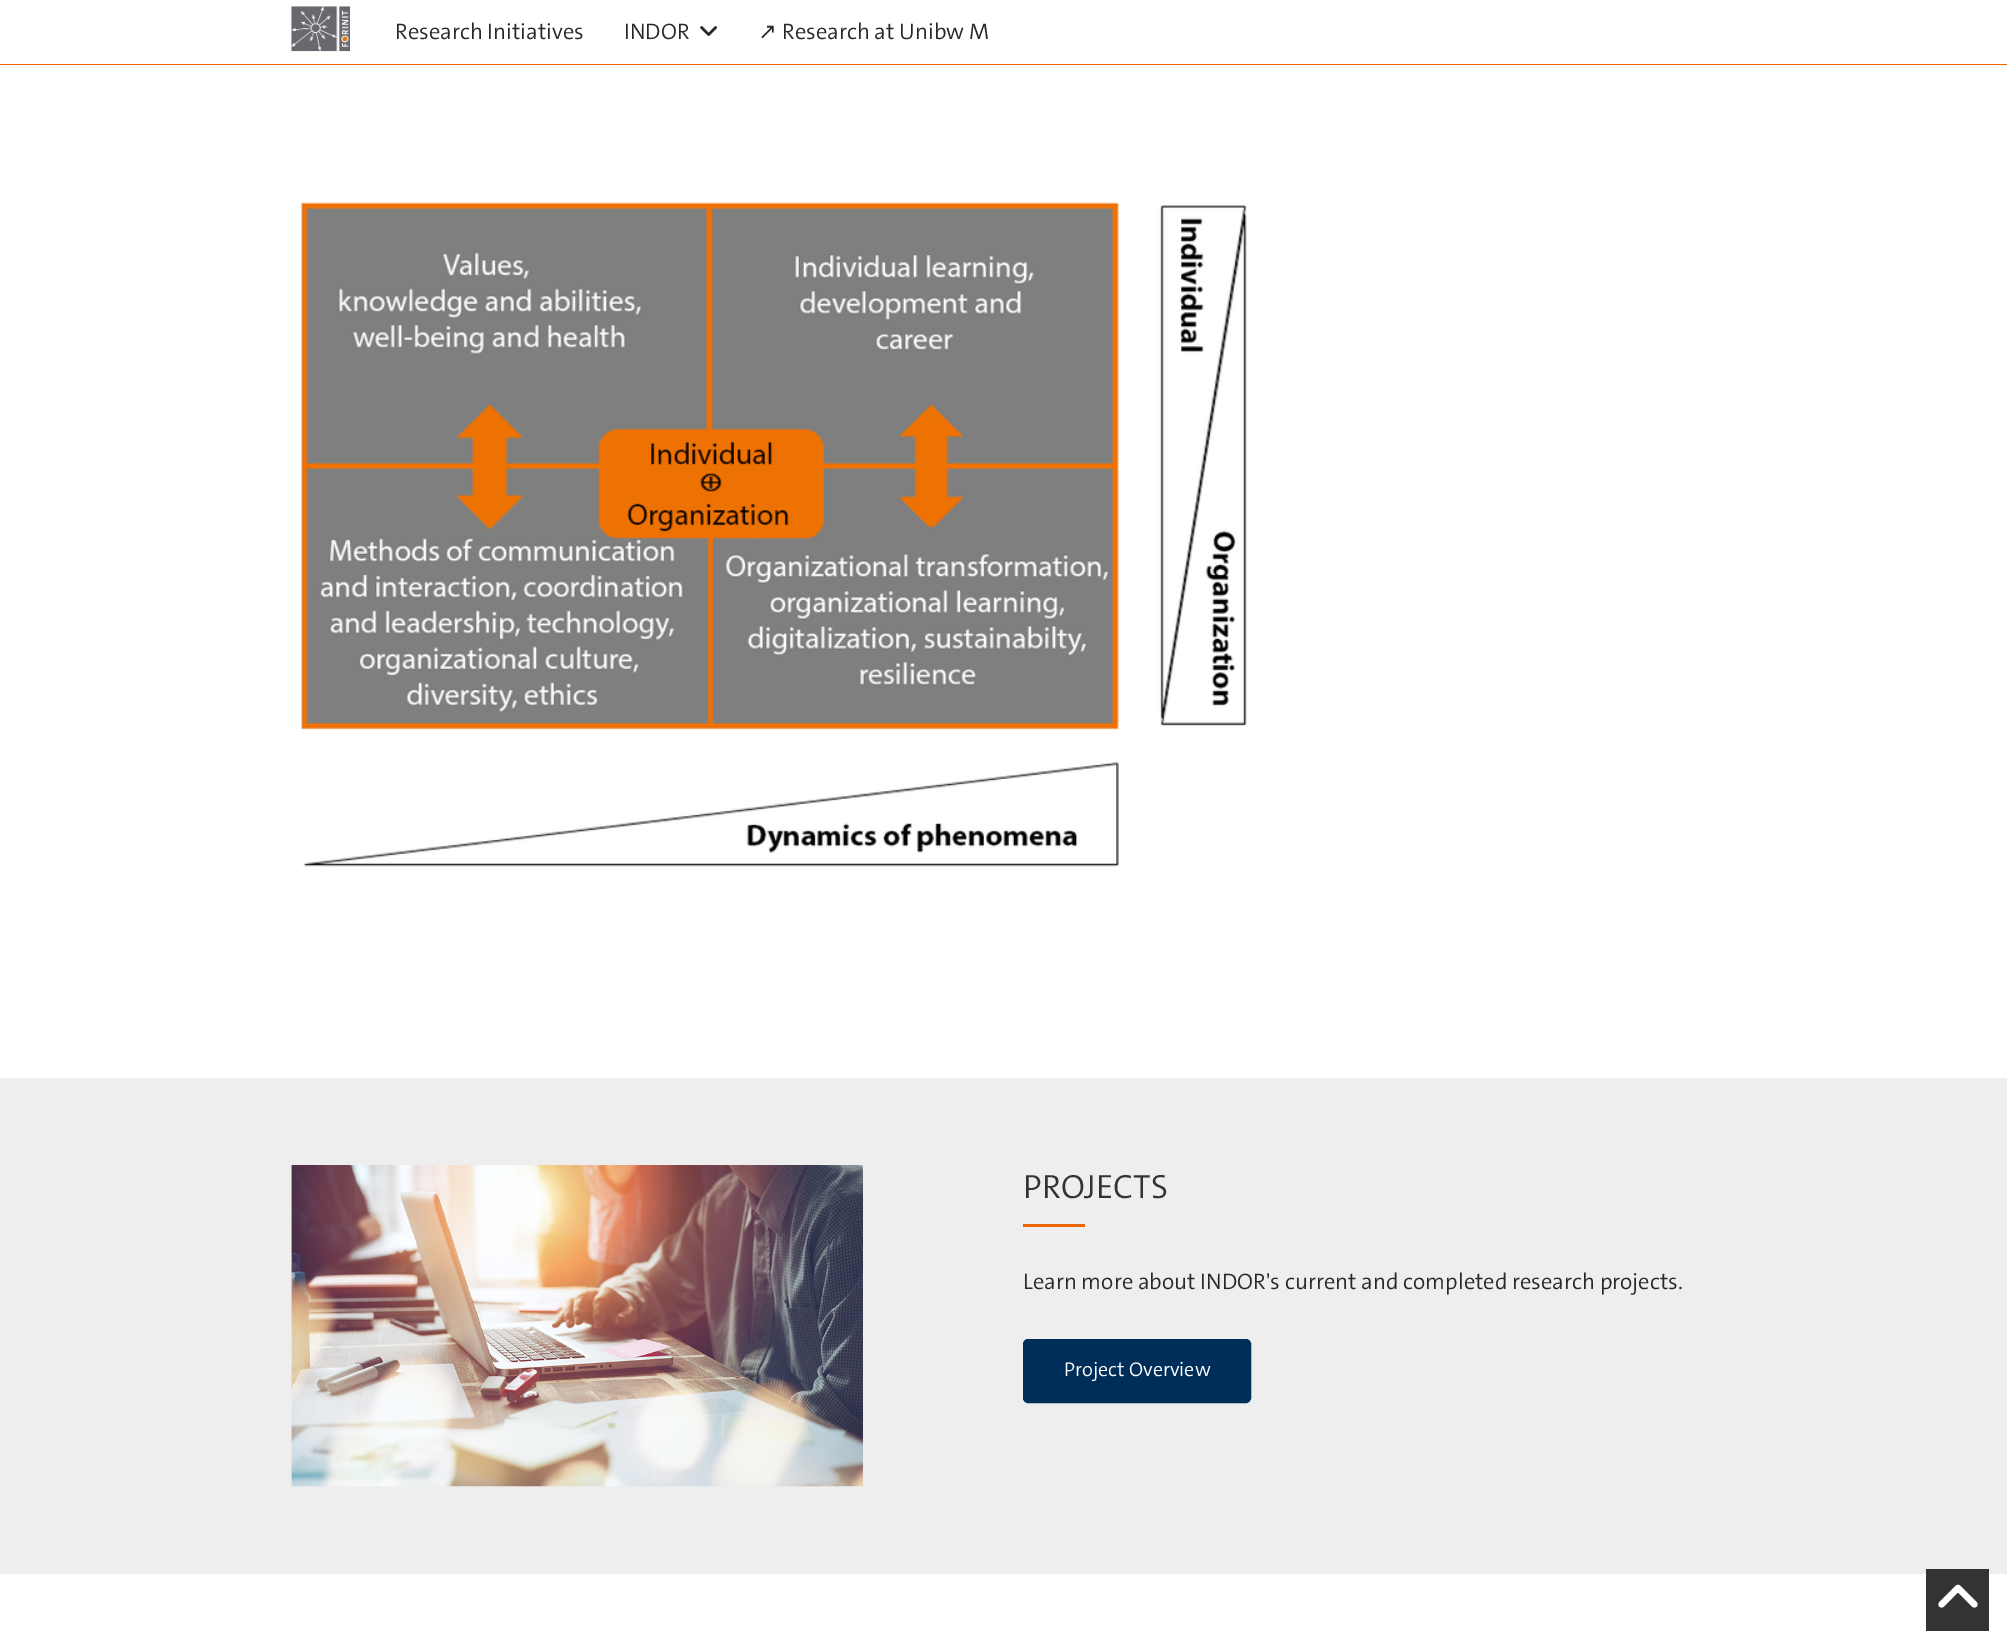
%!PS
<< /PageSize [2007 1649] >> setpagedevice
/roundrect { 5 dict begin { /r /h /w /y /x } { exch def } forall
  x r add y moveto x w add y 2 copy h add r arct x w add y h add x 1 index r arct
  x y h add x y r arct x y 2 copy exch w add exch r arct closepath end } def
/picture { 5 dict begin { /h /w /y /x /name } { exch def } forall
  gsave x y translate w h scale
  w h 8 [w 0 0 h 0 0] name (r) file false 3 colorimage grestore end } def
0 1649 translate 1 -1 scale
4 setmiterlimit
1 setgray
0 0 2007 1649 rectfill
0.929 0.4 0 setrgbcolor
0 64 2007 1 rectfill
(img1.rgb) 291 6 59 46 picture
/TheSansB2-Light [22.5 0 0 -22.5 0 0] selectfont
0.157 setgray
395 39 moveto (Research Initiatives) show
624 39 moveto (INDOR) show
(img2.rgb) 700 26 17 10 picture
/DejaVuSans-Regular [22.5 0 0 -22.5 0 0] selectfont
758 39 moveto (↗) show
/TheSansB2-Light [22.5 0 0 -22.5 0 0] selectfont
782 39 moveto (Research at Unibw M) show
(img3.rgb) 301 202 946 665 picture
0.933 setgray
0 1078 2007 496 rectfill
(img4.rgb) 291 1165 572 322 picture
/TheSansB2-Light [33.75 0 0 -33.75 0 0] selectfont
0.2 setgray
1023 1198 moveto (PROJECTS) show
0.929 0.4 0 setrgbcolor
1023 1224 62 3 rectfill
/TheSansB2-Light [22.5 0 0 -22.5 0 0] selectfont
0.157 setgray
1023 1289 moveto (Learn more about INDOR's current and completed research projects.) show
0 0.18 0.357 setrgbcolor
1023.5 1339.5 227 63 4.5 roundrect gsave fill grestore
stroke
/TheSansB2-Light [20 0 0 -20 0 0] selectfont
1 setgray
1064 1376 moveto (Project Overview) show
0.2 setgray
1926 1569 63 62 rectfill
(img5.rgb) 1938 1584 40 24 picture
showpage
